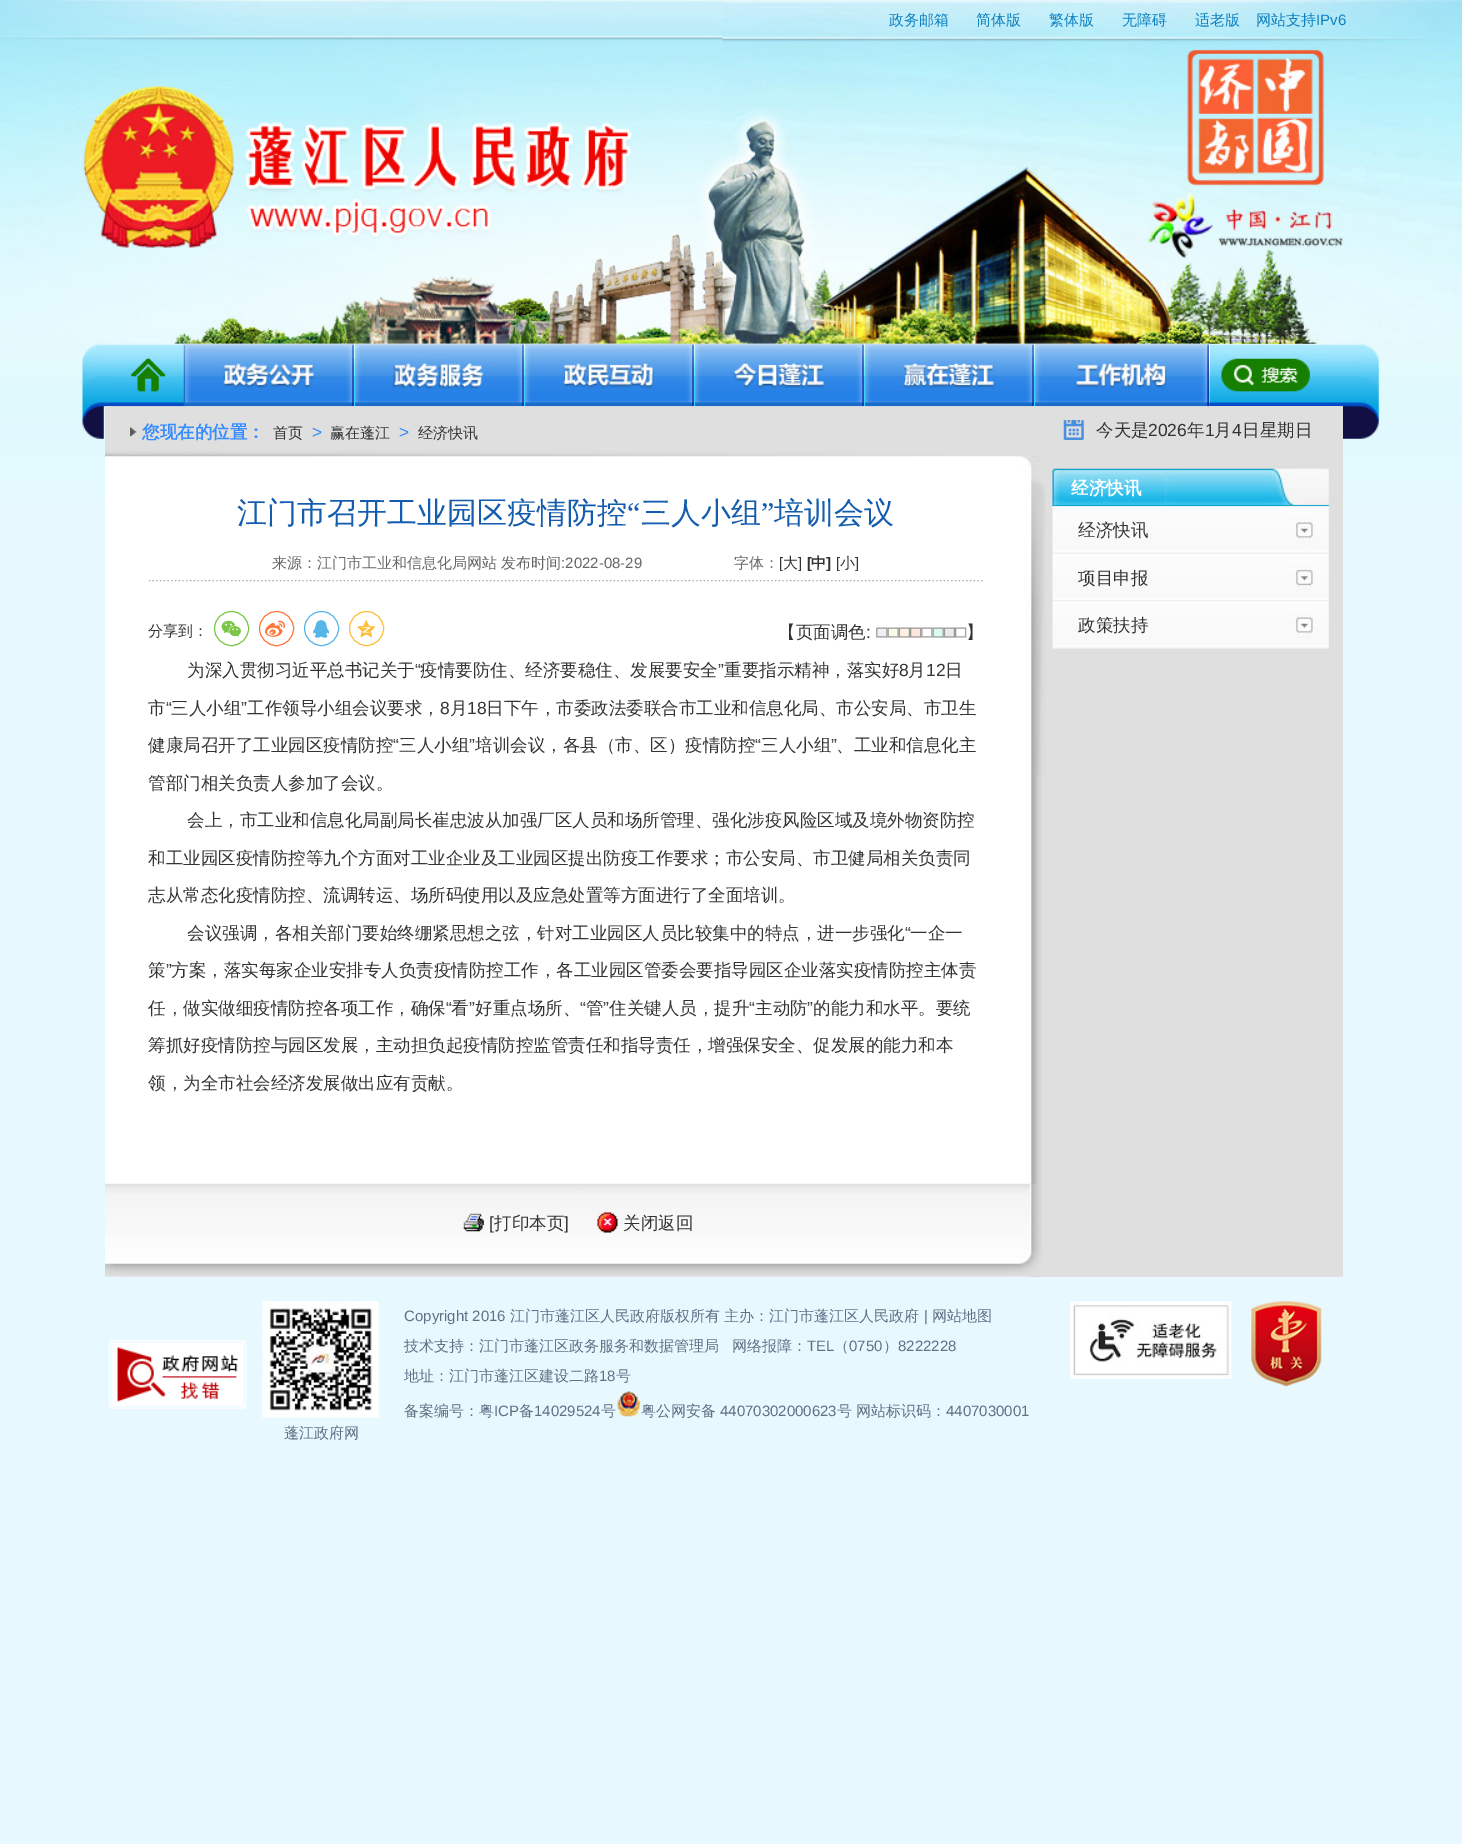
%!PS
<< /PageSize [1462 1844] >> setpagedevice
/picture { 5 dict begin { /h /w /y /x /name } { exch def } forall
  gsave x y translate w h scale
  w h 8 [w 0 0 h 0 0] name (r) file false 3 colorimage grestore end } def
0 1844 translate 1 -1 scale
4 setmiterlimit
0.91 0.973 1 setrgbcolor
0 0 1462 1844 rectfill
(img1.rgb) 0 440 1462 62 picture
(img2.rgb) 0 0 1462 440 picture
/WenQuanYiZenHei-Medium [15 0 0 -15 0 0] selectfont
0.059 0.506 0.749 setrgbcolor
889 25 moveto (政务邮箱) show
976 25 moveto (简体版) show
1049 25 moveto (繁体版) show
1122 25 moveto (无障碍) show
1195 25 moveto (适老版) show
1256 25 moveto (网站支持) show
/LiberationSans-Regular [15 0 0 -15 0 0] selectfont
1316 25 moveto (IPv6) show
0.875 setgray
105 406 1238 871 rectfill
(img3.rgb) 111 343 73 64 picture
(img4.rgb) 183 343 171 64 picture
(img5.rgb) 353 343 171 64 picture
(img6.rgb) 523 343 171 64 picture
(img7.rgb) 693 343 171 64 picture
(img8.rgb) 863 343 171 64 picture
(img9.rgb) 1033 343 177 64 picture
(img10.rgb) 1221 358 90 34 picture
(img14.rgb) 105 456 937 821 picture
(img15.rgb) 105 456 941 321 picture
(img11.rgb) 105 406 1105 51 picture
(img12.rgb) 130 427 7 10 picture
/WenQuanYiZenHei-Bold [17.5 0 0 -17.5 0 0] selectfont
0.212 0.549 1 setrgbcolor
142 438 moveto (您现在的位置：) show
/WenQuanYiZenHei-Medium [15 0 0 -15 0 0] selectfont
0.2 setgray
273 438 moveto (首页) show
/LiberationSans-Regular [17.5 0 0 -17.5 0 0] selectfont
0.212 0.549 1 setrgbcolor
312 438 moveto (>) show
/WenQuanYiZenHei-Medium [15 0 0 -15 0 0] selectfont
0.2 setgray
330 438 moveto (赢在蓬江) show
/LiberationSans-Regular [17.5 0 0 -17.5 0 0] selectfont
0.212 0.549 1 setrgbcolor
399 438 moveto (>) show
/WenQuanYiZenHei-Medium [15 0 0 -15 0 0] selectfont
0.2 setgray
418 438 moveto (经济快讯) show
(img13.rgb) 1063 420 21 20 picture
/WenQuanYiZenHei-Medium [17.5 0 0 -17.5 0 0] selectfont
1096 436 moveto (今天是) show
/LiberationSans-Regular [17.5 0 0 -17.5 0 0] selectfont
1148 436 moveto (2026) show
/WenQuanYiZenHei-Medium [17.5 0 0 -17.5 0 0] selectfont
1187 436 moveto (年) show
/LiberationSans-Regular [17.5 0 0 -17.5 0 0] selectfont
1205 436 moveto (1) show
/WenQuanYiZenHei-Medium [17.5 0 0 -17.5 0 0] selectfont
1214 436 moveto (月) show
/LiberationSans-Regular [17.5 0 0 -17.5 0 0] selectfont
1232 436 moveto (4) show
/WenQuanYiZenHei-Medium [17.5 0 0 -17.5 0 0] selectfont
1242 436 moveto (日星期日) show
/WenQuanYiZenHei-Medium [30 0 0 -30 0 0] selectfont
0.078 0.365 0.682 setrgbcolor
237 523 moveto (江门市召开工业园区疫情防控) show
/LiberationSerif-Regular [30 0 0 -30 0 0] selectfont
627 523 moveto (“) show
/WenQuanYiZenHei-Medium [30 0 0 -30 0 0] selectfont
641 523 moveto (三人小组) show
/LiberationSerif-Regular [30 0 0 -30 0 0] selectfont
761 523 moveto (”) show
/WenQuanYiZenHei-Medium [30 0 0 -30 0 0] selectfont
774 523 moveto (培训会议) show
(img16.rgb) 148 580 835 2 picture
/WenQuanYiZenHei-Medium [15 0 0 -15 0 0] selectfont
0.4 setgray
272 568 moveto (来源：江门市工业和信息化局网站) show
501 568 moveto (发布时间) show
/LiberationSans-Regular [15 0 0 -15 0 0] selectfont
561 568 moveto (:2022-08-29) show
/WenQuanYiZenHei-Medium [15 0 0 -15 0 0] selectfont
734 568 moveto (字体：) show
/LiberationSans-Regular [15 0 0 -15 0 0] selectfont
0.2 setgray
779 568 moveto ([) show
/WenQuanYiZenHei-Medium [15 0 0 -15 0 0] selectfont
783 568 moveto (大) show
/LiberationSans-Regular [15 0 0 -15 0 0] selectfont
798 568 moveto (]) show
/LiberationSans-Bold [15 0 0 -15 0 0] selectfont
807 568 moveto ([) show
/WenQuanYiZenHei-Bold [15 0 0 -15 0 0] selectfont
811 568 moveto (中) show
/LiberationSans-Bold [15 0 0 -15 0 0] selectfont
826 568 moveto (]) show
/LiberationSans-Regular [15 0 0 -15 0 0] selectfont
836 568 moveto ([) show
/WenQuanYiZenHei-Medium [15 0 0 -15 0 0] selectfont
840 568 moveto (小) show
/LiberationSans-Regular [15 0 0 -15 0 0] selectfont
855 568 moveto (]) show
/WenQuanYiZenHei-Medium [15 0 0 -15 0 0] selectfont
148 636 moveto (分享到：) show
0.482 0.773 0.286 setrgbcolor
newpath 231.5 628.5 17 0 360 arc closepath stroke
(img17.rgb) 221 620 20 17 picture
1 0.463 0.231 setrgbcolor
newpath 276.5 628.5 17 0 360 arc closepath stroke
(img18.rgb) 265 620 20 17 picture
0.337 0.714 0.906 setrgbcolor
newpath 321.5 628.5 17 0 360 arc closepath stroke
(img19.rgb) 313 620 16 18 picture
0.992 0.745 0.239 setrgbcolor
newpath 366.5 628.5 17 0 360 arc closepath stroke
(img20.rgb) 357 620 19 18 picture
/WenQuanYiZenHei-Medium [17.5 0 0 -17.5 0 0] selectfont
0.2 setgray
778 638 moveto (【页面调色) show
/LiberationSans-Regular [17.5 0 0 -17.5 0 0] selectfont
866 638 moveto (:) show
0.929 0.941 0.961 setrgbcolor
876 628 12 10 rectfill
(img21.rgb) 876 627 12 11 picture
0.98 0.984 0.902 setrgbcolor
888 628 11 10 rectfill
(img22.rgb) 887 627 12 11 picture
1 0.949 0.886 setrgbcolor
899 628 11 10 rectfill
(img23.rgb) 898 627 12 11 picture
0.992 0.902 0.878 setrgbcolor
910 628 11 10 rectfill
(img24.rgb) 910 627 12 11 picture
(img25.rgb) 921 627 12 11 picture
0.855 0.98 0.953 setrgbcolor
933 628 11 10 rectfill
(img26.rgb) 932 627 12 11 picture
0.918 0.918 0.937 setrgbcolor
944 628 11 10 rectfill
(img27.rgb) 943 627 12 11 picture
(img28.rgb) 955 627 12 11 picture
/WenQuanYiZenHei-Medium [17.5 0 0 -17.5 0 0] selectfont
0.2 setgray
966 638 moveto (】) show
187 676 moveto (为深入贯彻习近平总书记关于) show
/LiberationSans-Regular [17.5 0 0 -17.5 0 0] selectfont
415 676 moveto (“) show
/WenQuanYiZenHei-Medium [17.5 0 0 -17.5 0 0] selectfont
420 676 moveto (疫情要防住、经济要稳住、发展要安全) show
/LiberationSans-Regular [17.5 0 0 -17.5 0 0] selectfont
718 676 moveto (”) show
/WenQuanYiZenHei-Medium [17.5 0 0 -17.5 0 0] selectfont
724 676 moveto (重要指示精神，落实好) show
/LiberationSans-Regular [17.5 0 0 -17.5 0 0] selectfont
899 676 moveto (8) show
/WenQuanYiZenHei-Medium [17.5 0 0 -17.5 0 0] selectfont
908 676 moveto (月) show
/LiberationSans-Regular [17.5 0 0 -17.5 0 0] selectfont
926 676 moveto (12) show
/WenQuanYiZenHei-Medium [17.5 0 0 -17.5 0 0] selectfont
945 676 moveto (日) show
148 714 moveto (市) show
/LiberationSans-Regular [17.5 0 0 -17.5 0 0] selectfont
166 714 moveto (“) show
/WenQuanYiZenHei-Medium [17.5 0 0 -17.5 0 0] selectfont
171 714 moveto (三人小组) show
/LiberationSans-Regular [17.5 0 0 -17.5 0 0] selectfont
241 714 moveto (”) show
/WenQuanYiZenHei-Medium [17.5 0 0 -17.5 0 0] selectfont
247 714 moveto (工作领导小组会议要求，) show
/LiberationSans-Regular [17.5 0 0 -17.5 0 0] selectfont
440 714 moveto (8) show
/WenQuanYiZenHei-Medium [17.5 0 0 -17.5 0 0] selectfont
450 714 moveto (月) show
/LiberationSans-Regular [17.5 0 0 -17.5 0 0] selectfont
467 714 moveto (18) show
/WenQuanYiZenHei-Medium [17.5 0 0 -17.5 0 0] selectfont
486 714 moveto (日下午，市委政法委联合市工业和信息化局、市公安局、市卫生) show
148 751 moveto (健康局召开了工业园区疫情防控) show
/LiberationSans-Regular [17.5 0 0 -17.5 0 0] selectfont
393 751 moveto (“) show
/WenQuanYiZenHei-Medium [17.5 0 0 -17.5 0 0] selectfont
399 751 moveto (三人小组) show
/LiberationSans-Regular [17.5 0 0 -17.5 0 0] selectfont
469 751 moveto (”) show
/WenQuanYiZenHei-Medium [17.5 0 0 -17.5 0 0] selectfont
475 751 moveto (培训会议，各县（市、区）疫情防控) show
/LiberationSans-Regular [17.5 0 0 -17.5 0 0] selectfont
755 751 moveto (“) show
/WenQuanYiZenHei-Medium [17.5 0 0 -17.5 0 0] selectfont
761 751 moveto (三人小组) show
/LiberationSans-Regular [17.5 0 0 -17.5 0 0] selectfont
831 751 moveto (”) show
/WenQuanYiZenHei-Medium [17.5 0 0 -17.5 0 0] selectfont
836 751 moveto (、工业和信息化主) show
148 789 moveto (管部门相关负责人参加了会议。) show
187 826 moveto (会上，市工业和信息化局副局长崔忠波从加强厂区人员和场所管理、强化涉疫风险区域及境外物资防控) show
148 864 moveto (和工业园区疫情防控等九个方面对工业企业及工业园区提出防疫工作要求；市公安局、市卫健局相关负责同) show
148 901 moveto (志从常态化疫情防控、流调转运、场所码使用以及应急处置等方面进行了全面培训。) show
187 939 moveto (会议强调，各相关部门要始终绷紧思想之弦，针对工业园区人员比较集中的特点，进一步强化) show
/LiberationSans-Regular [17.5 0 0 -17.5 0 0] selectfont
905 939 moveto (“) show
/WenQuanYiZenHei-Medium [17.5 0 0 -17.5 0 0] selectfont
910 939 moveto (一企一) show
148 976 moveto (策) show
/LiberationSans-Regular [17.5 0 0 -17.5 0 0] selectfont
166 976 moveto (”) show
/WenQuanYiZenHei-Medium [17.5 0 0 -17.5 0 0] selectfont
171 976 moveto (方案，落实每家企业安排专人负责疫情防控工作，各工业园区管委会要指导园区企业落实疫情防控主体责) show
148 1014 moveto (任，做实做细疫情防控各项工作，确保) show
/LiberationSans-Regular [17.5 0 0 -17.5 0 0] selectfont
446 1014 moveto (“) show
/WenQuanYiZenHei-Medium [17.5 0 0 -17.5 0 0] selectfont
451 1014 moveto (看) show
/LiberationSans-Regular [17.5 0 0 -17.5 0 0] selectfont
469 1014 moveto (”) show
/WenQuanYiZenHei-Medium [17.5 0 0 -17.5 0 0] selectfont
475 1014 moveto (好重点场所、) show
/LiberationSans-Regular [17.5 0 0 -17.5 0 0] selectfont
580 1014 moveto (“) show
/WenQuanYiZenHei-Medium [17.5 0 0 -17.5 0 0] selectfont
586 1014 moveto (管) show
/LiberationSans-Regular [17.5 0 0 -17.5 0 0] selectfont
603 1014 moveto (”) show
/WenQuanYiZenHei-Medium [17.5 0 0 -17.5 0 0] selectfont
609 1014 moveto (住关键人员，提升) show
/LiberationSans-Regular [17.5 0 0 -17.5 0 0] selectfont
749 1014 moveto (“) show
/WenQuanYiZenHei-Medium [17.5 0 0 -17.5 0 0] selectfont
755 1014 moveto (主动防) show
/LiberationSans-Regular [17.5 0 0 -17.5 0 0] selectfont
807 1014 moveto (”) show
/WenQuanYiZenHei-Medium [17.5 0 0 -17.5 0 0] selectfont
813 1014 moveto (的能力和水平。要统) show
148 1051 moveto (筹抓好疫情防控与园区发展，主动担负起疫情防控监管责任和指导责任，增强保安全、促发展的能力和本) show
148 1089 moveto (领，为全市社会经济发展做出应有贡献。) show
(img29.rgb) 105 1183 937 93 picture
(img30.rgb) 463 1213 21 19 picture
/LiberationSans-Regular [17.5 0 0 -17.5 0 0] selectfont
489 1229 moveto ([) show
/WenQuanYiZenHei-Medium [17.5 0 0 -17.5 0 0] selectfont
494 1229 moveto (打印本页) show
/LiberationSans-Regular [17.5 0 0 -17.5 0 0] selectfont
564 1229 moveto (]) show
(img31.rgb) 597 1212 21 21 picture
/WenQuanYiZenHei-Medium [17.5 0 0 -17.5 0 0] selectfont
623 1229 moveto (关闭返回) show
(img32.rgb) 1052 468 277 39 picture
/WenQuanYiZenHei-Bold [17.5 0 0 -17.5 0 0] selectfont
1 setgray
1071 494 moveto (经济快讯) show
(img33.rgb) 1052 506 277 48 picture
/WenQuanYiZenHei-Medium [17.5 0 0 -17.5 0 0] selectfont
0.2 setgray
1078 536 moveto (经济快讯) show
(img34.rgb) 1052 553 277 49 picture
1078 584 moveto (项目申报) show
(img35.rgb) 1052 601 277 48 picture
1078 631 moveto (政策扶持) show
(img36.rgb) 108 1340 139 69 picture
/LiberationSans-Regular [15 0 0 -15 0 0] selectfont
0.373 0.443 0.522 setrgbcolor
404 1321 moveto (Copyright 2016) show
/WenQuanYiZenHei-Medium [15 0 0 -15 0 0] selectfont
510 1321 moveto (江门市蓬江区人民政府版权所有) show
724 1321 moveto (主办：江门市蓬江区人民政府) show
/LiberationSans-Regular [15 0 0 -15 0 0] selectfont
924 1321 moveto (|) show
/WenQuanYiZenHei-Medium [15 0 0 -15 0 0] selectfont
932 1321 moveto (网站地图) show
404 1351 moveto (技术支持：江门市蓬江区政务服务和数据管理局) show
732 1351 moveto (网络报障：) show
/LiberationSans-Regular [15 0 0 -15 0 0] selectfont
807 1351 moveto (TEL) show
/WenQuanYiZenHei-Medium [15 0 0 -15 0 0] selectfont
834 1351 moveto (（) show
/LiberationSans-Regular [15 0 0 -15 0 0] selectfont
849 1351 moveto (0750) show
/WenQuanYiZenHei-Medium [15 0 0 -15 0 0] selectfont
883 1351 moveto (）) show
/LiberationSans-Regular [15 0 0 -15 0 0] selectfont
898 1351 moveto (8222228) show
/WenQuanYiZenHei-Medium [15 0 0 -15 0 0] selectfont
404 1381 moveto (地址：江门市蓬江区建设二路) show
/LiberationSans-Regular [15 0 0 -15 0 0] selectfont
599 1381 moveto (18) show
/WenQuanYiZenHei-Medium [15 0 0 -15 0 0] selectfont
616 1381 moveto (号) show
404 1416 moveto (备案编号：粤) show
/LiberationSans-Regular [15 0 0 -15 0 0] selectfont
494 1416 moveto (ICP) show
/WenQuanYiZenHei-Medium [15 0 0 -15 0 0] selectfont
519 1416 moveto (备) show
/LiberationSans-Regular [15 0 0 -15 0 0] selectfont
534 1416 moveto (14029524) show
/WenQuanYiZenHei-Medium [15 0 0 -15 0 0] selectfont
601 1416 moveto (号) show
(img37.rgb) 617 1391 24 26 picture
641 1416 moveto (粤公网安备) show
/LiberationSans-Regular [15 0 0 -15 0 0] selectfont
720 1416 moveto (44070302000623) show
/WenQuanYiZenHei-Medium [15 0 0 -15 0 0] selectfont
837 1416 moveto (号) show
856 1416 moveto (网站标识码：) show
/LiberationSans-Regular [15 0 0 -15 0 0] selectfont
946 1416 moveto (4407030001) show
(img38.rgb) 1070 1301 162 78 picture
(img39.rgb) 1251 1301 71 86 picture
(img40.rgb) 262 1301 117 117 picture
/WenQuanYiZenHei-Medium [15 0 0 -15 0 0] selectfont
284 1438 moveto (蓬江政府网) show
showpage
